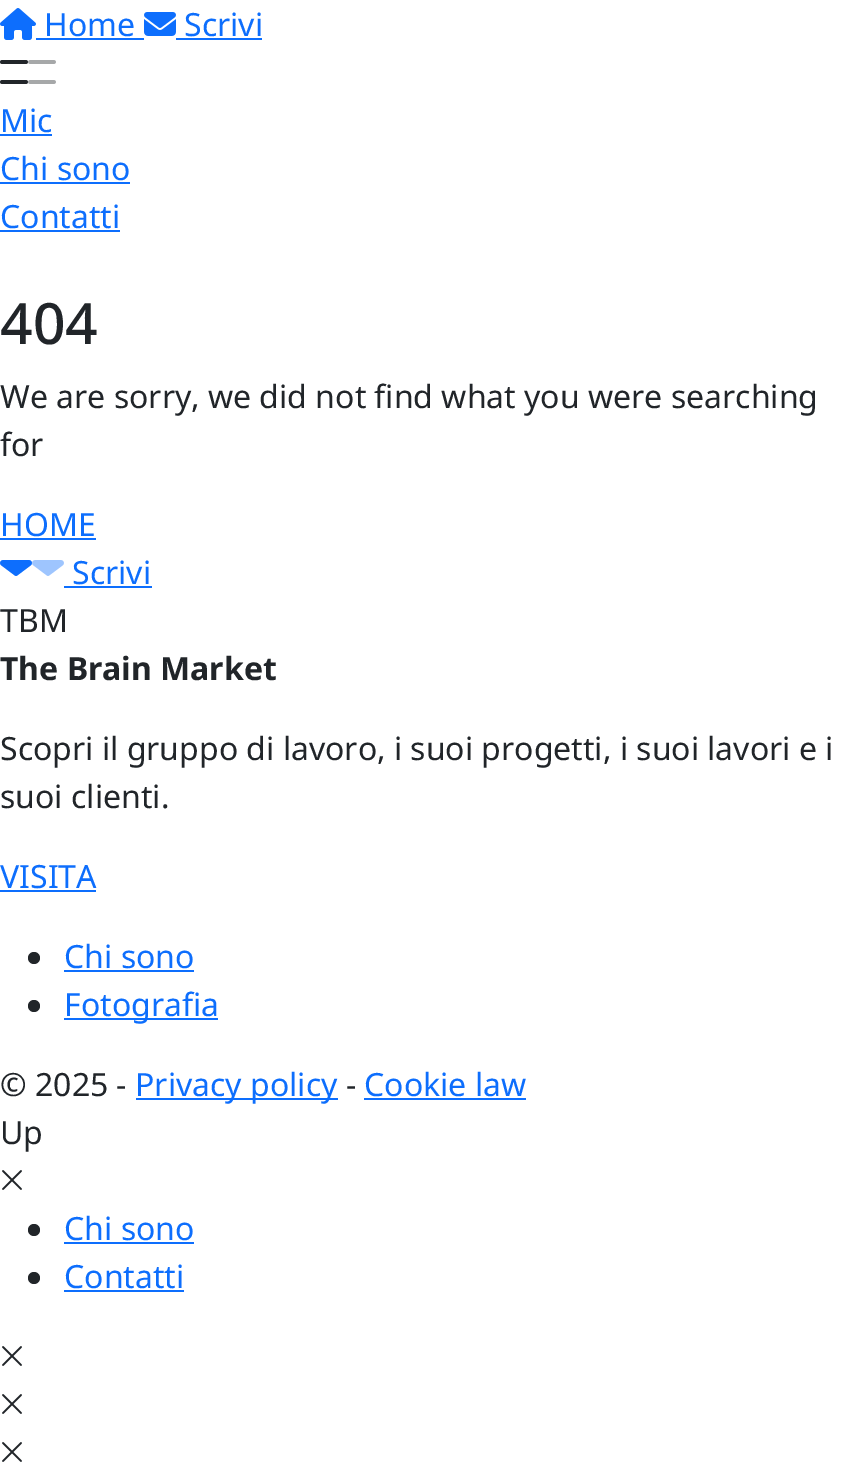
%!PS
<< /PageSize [861 1462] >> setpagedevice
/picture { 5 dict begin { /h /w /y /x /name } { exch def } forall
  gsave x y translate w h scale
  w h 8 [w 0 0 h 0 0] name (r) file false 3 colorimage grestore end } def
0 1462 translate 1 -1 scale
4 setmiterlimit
1 setgray
0 0 861 1462 rectfill
(img1.rgb) 0 8 36 32 picture
/NotoSans-Regular [32 0 0 -32 0 0] selectfont
0.051 0.431 0.992 setrgbcolor
44 36 moveto (Home) show
36 38 108 2 rectfill
(img2.rgb) 144 12 32 24 picture
184 36 moveto (Scrivi) show
176 38 86 2 rectfill
(img3.rgb) 0 60 28 24 picture
(img4.rgb) 0 60 56 24 picture
0 132 moveto (Mic) show
0 134 52 2 rectfill
0 180 moveto (Chi sono) show
0 182 130 2 rectfill
0 228 moveto (Contatti) show
0 230 120 2 rectfill
/NotoSans-Medium [57 0 0 -57 0 0] selectfont
0.129 0.145 0.161 setrgbcolor
0 344 moveto (404) show
/NotoSans-Regular [32 0 0 -32 0 0] selectfont
0 408 moveto (We are sorry, we did not find what you were searching) show
0 456 moveto (for) show
0.051 0.431 0.992 setrgbcolor
0 536 moveto (HOME) show
0 538 96 2 rectfill
(img5.rgb) 0 560 32 16 picture
(img6.rgb) 0 560 64 16 picture
64 586 88 2 rectfill
72 584 moveto (Scrivi) show
0.129 0.145 0.161 setrgbcolor
0 632 moveto (TBM) show
/NotoSans-Bold [32 0 0 -32 0 0] selectfont
0 680 moveto (The Brain Market) show
/NotoSans-Regular [32 0 0 -32 0 0] selectfont
0 760 moveto (Scopri il gruppo di lavoro, i suoi progetti, i suoi lavori e i) show
0 808 moveto (suoi clienti.) show
0.051 0.431 0.992 setrgbcolor
0 888 moveto (VISITA) show
0 890 96 2 rectfill
0.129 0.145 0.161 setrgbcolor
newpath 34 958 6 0 360 arc closepath fill
0.051 0.431 0.992 setrgbcolor
64 968 moveto (Chi sono) show
64 970 130 2 rectfill
0.129 0.145 0.161 setrgbcolor
newpath 34 1006 6 0 360 arc closepath fill
0.051 0.431 0.992 setrgbcolor
64 1018 154 2 rectfill
64 1016 moveto (Fotografia) show
0.129 0.145 0.161 setrgbcolor
0 1096 moveto (© 2025 -) show
0.051 0.431 0.992 setrgbcolor
136 1098 202 2 rectfill
135 1096 moveto (Privacy policy) show
0.129 0.145 0.161 setrgbcolor
346 1096 moveto (-) show
0.051 0.431 0.992 setrgbcolor
364 1096 moveto (Cookie law) show
364 1098 162 2 rectfill
0.129 0.145 0.161 setrgbcolor
0 1144 moveto (Up) show
(img7.rgb) 2 1170 20 20 picture
newpath 34 1230 6 0 360 arc closepath fill
0.051 0.431 0.992 setrgbcolor
64 1240 moveto (Chi sono) show
64 1242 130 2 rectfill
0.129 0.145 0.161 setrgbcolor
newpath 34 1278 6 0 360 arc closepath fill
0.051 0.431 0.992 setrgbcolor
64 1288 moveto (Contatti) show
64 1290 120 2 rectfill
(img7.rgb) 2 1346 20 20 picture
(img7.rgb) 2 1394 20 20 picture
(img7.rgb) 2 1442 20 20 picture
showpage
